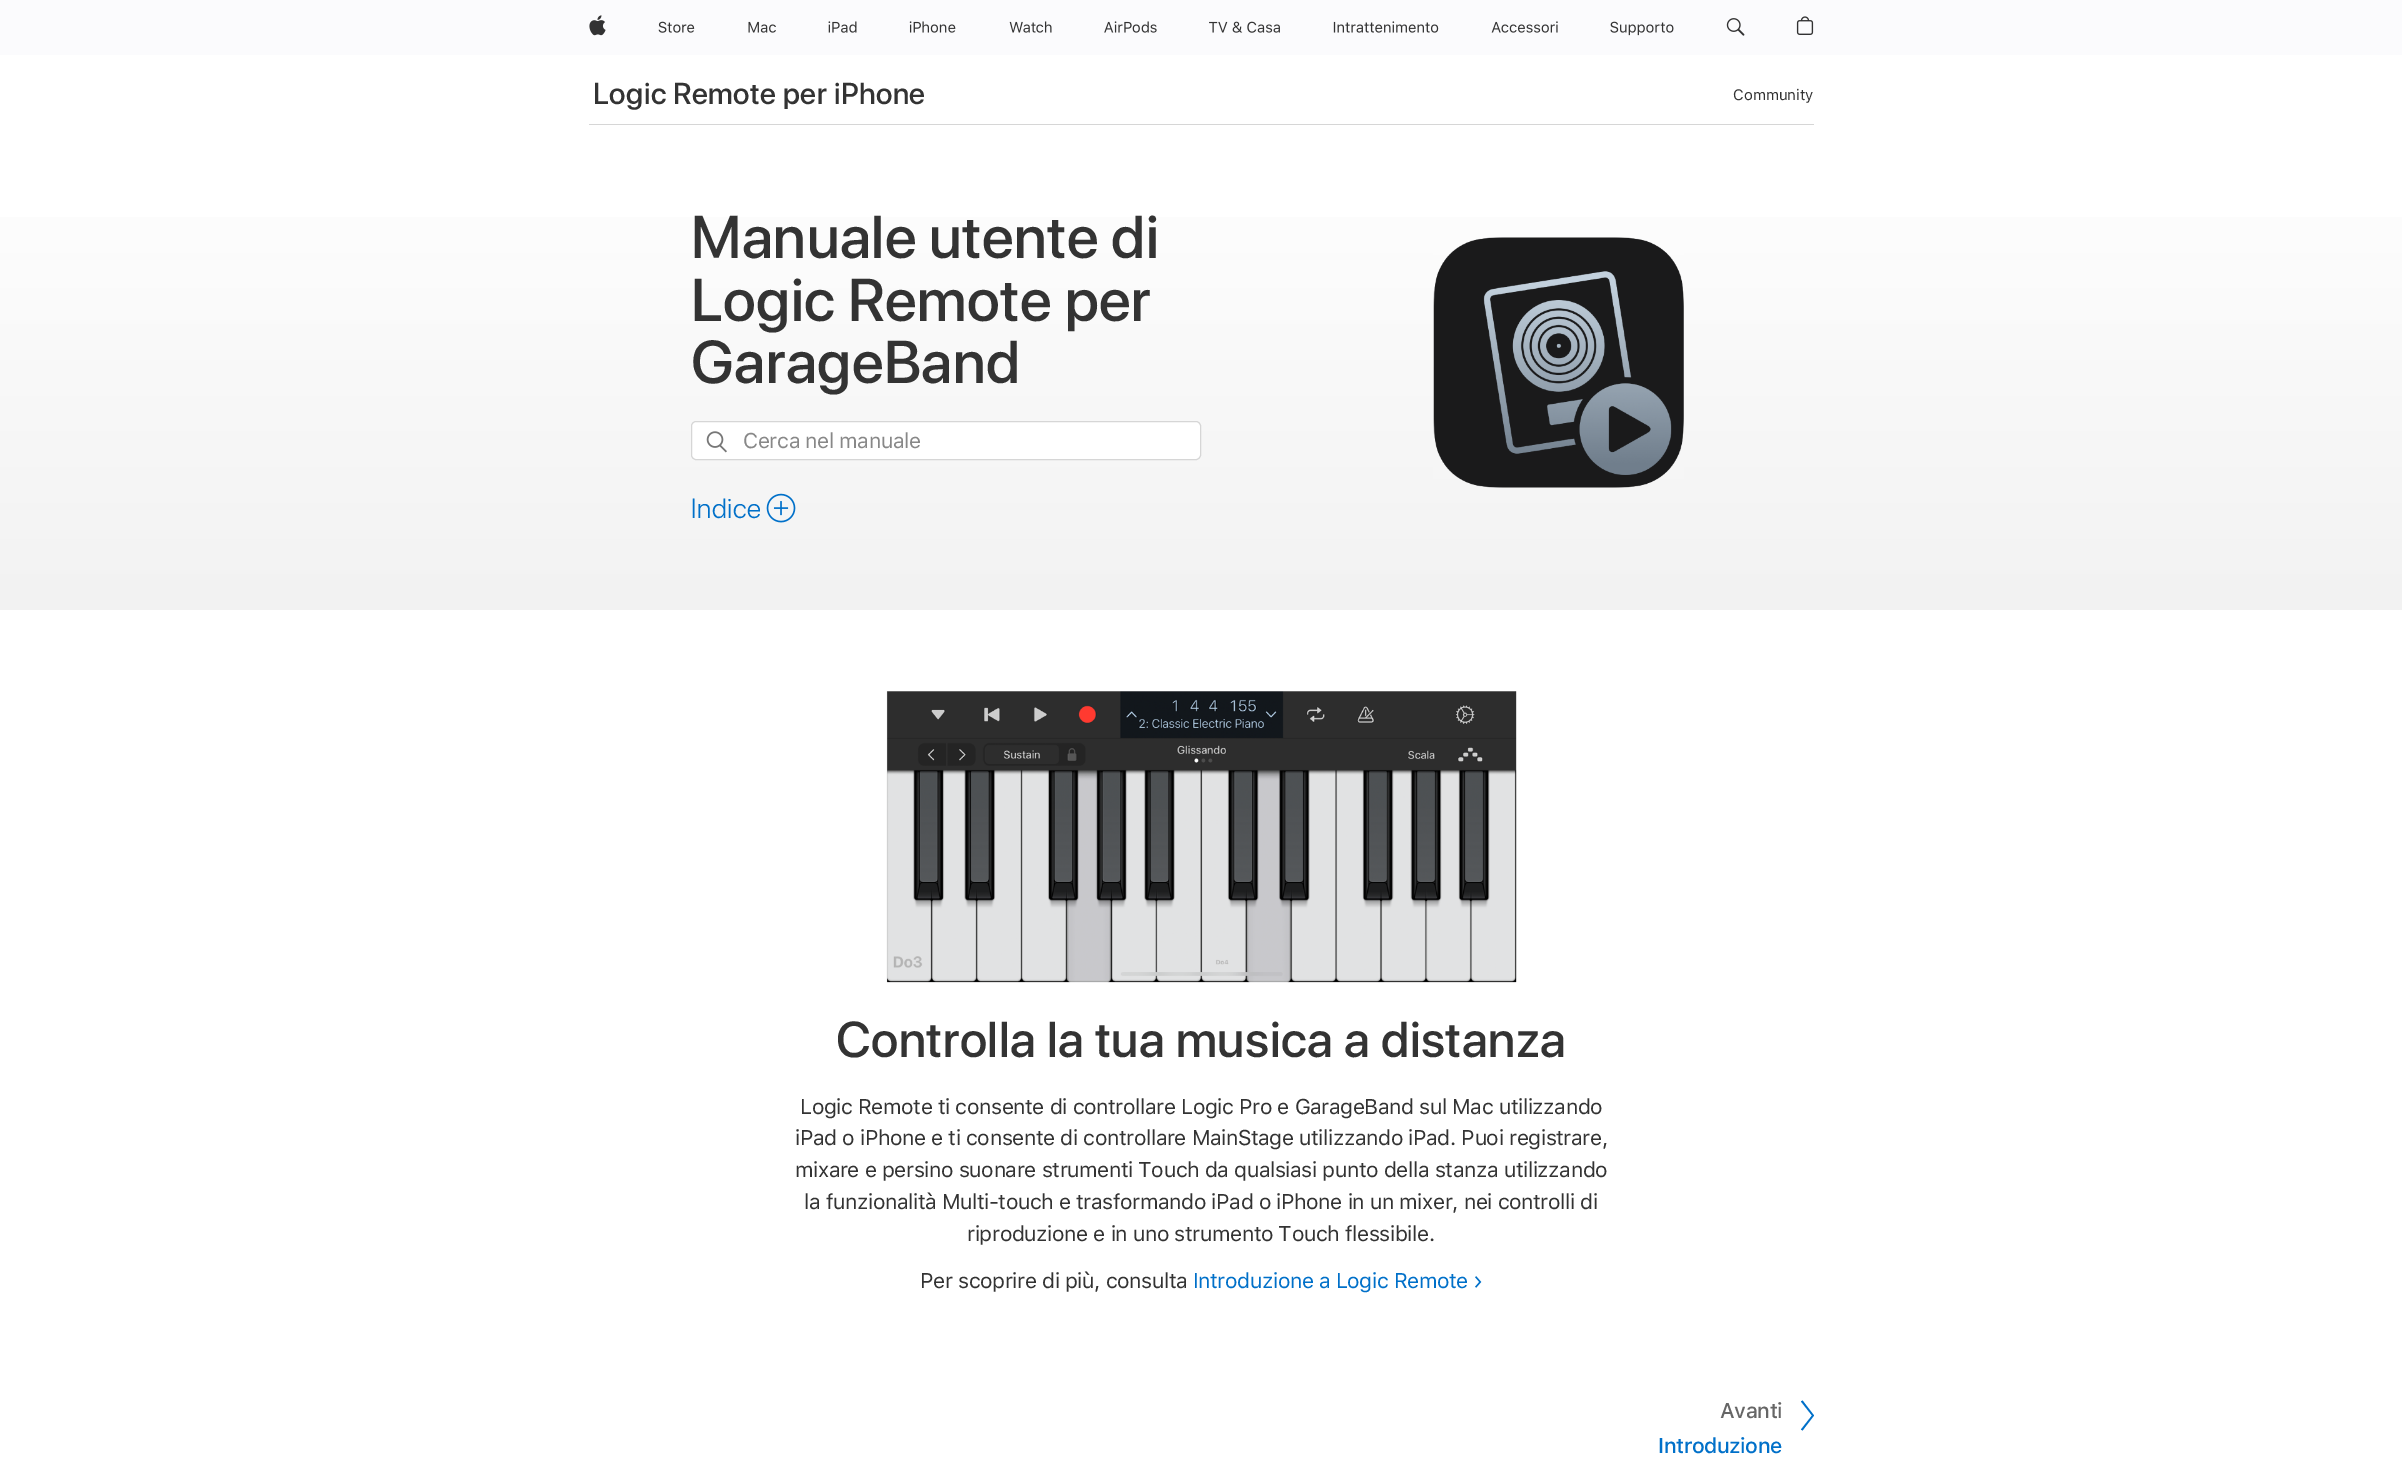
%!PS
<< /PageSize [2402 1477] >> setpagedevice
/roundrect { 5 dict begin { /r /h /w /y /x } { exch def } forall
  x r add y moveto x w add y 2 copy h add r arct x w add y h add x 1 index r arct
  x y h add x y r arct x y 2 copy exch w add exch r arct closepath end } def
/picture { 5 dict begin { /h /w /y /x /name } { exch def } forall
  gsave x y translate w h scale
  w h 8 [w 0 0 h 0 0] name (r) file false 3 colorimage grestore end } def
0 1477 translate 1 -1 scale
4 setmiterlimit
1 setgray
0 0 2402 1477 rectfill
0.984 0.984 0.992 setrgbcolor
0 0 2402 55 rectfill
(img1.rgb) 589 15 17 21 picture
(img2.rgb) 658 21 37 12 picture
(img3.rgb) 748 21 28 12 picture
(img4.rgb) 828 21 29 12 picture
(img5.rgb) 909 21 47 12 picture
(img6.rgb) 1009 21 43 12 picture
(img7.rgb) 1104 21 53 12 picture
(img8.rgb) 1209 21 71 12 picture
(img9.rgb) 1333 21 106 12 picture
(img10.rgb) 1491 21 67 12 picture
(img11.rgb) 1610 21 64 15 picture
(img12.rgb) 1726 18 19 18 picture
(img13.rgb) 1796 16 18 19 picture
/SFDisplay-Medium [30 0 0 -30 0 0] selectfont
0.2 setgray
593 104 moveto 0.45 0 (Logic Remote per iPhone) ashow
/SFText-Regular [15 0 0 -15 0 0] selectfont
1733 100 moveto (Community) show
0.839 setgray
589 124 1225 1 rectfill
gsave newpath 0 217 moveto 2402 217 lineto 2402 610 lineto 0 610 lineto closepath clip newpath
<< /ShadingType 2 /ColorSpace /DeviceRGB /Coords [1201 124 1201 610] /Extend [true true] /Function << /FunctionType 2 /Domain [0 1] /C0 [1 1 1] /C1 [0.949 0.949 0.949] /N 1 >> >> shfill grestore
/SFDisplay-Medium [60 0 0 -60 0 0] selectfont
0.2 setgray
691 258 moveto 0.4 0 (Manuale utente di) ashow
691 321 moveto 0.4 0 (Logic Remote per) ashow
691 383 moveto 0.4 0 (GarageBand) ashow
1 setgray
691.5 421.5 509 38 4.5 roundrect gsave fill grestore
0.839 setgray
stroke
(img14.rgb) 706 431 21 22 picture
/SFText-Regular [21.25 0 0 -21.25 0 0] selectfont
0.533 setgray
743 448 moveto -0.45 0 (Cerca nel manuale) ashow
/SFDisplay-Light [27.5 0 0 -27.5 0 0] selectfont
0 0.439 0.788 setrgbcolor
691 518 moveto 0.5 0 (Indice) ashow
(img15.rgb) 766 493 30 30 picture
(img16.rgb) 1433 237 251 251 picture
(img17.rgb) 886 691 631 292 picture
/SFDisplay-Medium [50 0 0 -50 0 0] selectfont
0.2 setgray
836 1057 moveto 0.4 0 (Controlla la tua musica a distanza) ashow
/SFText-Regular [21.25 0 0 -21.25 0 0] selectfont
800 1114 moveto -0.45 0 (Logic Remote ti consente di controllare Logic Pro e GarageBand sul Mac utilizzando) ashow
795 1145 moveto -0.45 0 (iPad o iPhone e ti consente di controllare MainStage utilizzando iPad. Puoi registrare,) ashow
795 1177 moveto -0.45 0 (mixare e persino suonare strumenti Touch da qualsiasi punto della stanza utilizzando) ashow
804 1209 moveto -0.45 0 (la funzionalità Multi-touch e trasformando iPad o iPhone in un mixer, nei controlli di) ashow
967 1241 moveto -0.45 0 (riproduzione e in uno strumento Touch flessibile.) ashow
920 1288 moveto -0.45 0 (Per scoprire di più, consulta) ashow
0 0.439 0.788 setrgbcolor
1193 1288 moveto -0.45 0 (Introduzione a Logic Remote) ashow
(img18.rgb) 1475 1276 7 12 picture
/SFText-Medium [21.25 0 0 -21.25 0 0] selectfont
0.4 setgray
1720 1418 moveto -0.45 0 (Avanti) ashow
0 0.439 0.788 setrgbcolor
newpath 1801 1401.5 moveto 1812 1415.5 lineto 1801 1429.5 lineto 1802.5 1430.5 lineto 1814 1415.5 lineto 1802.5 1400.5 lineto closepath fill
1658 1453 moveto -0.45 0 (Introduzione) ashow
showpage
